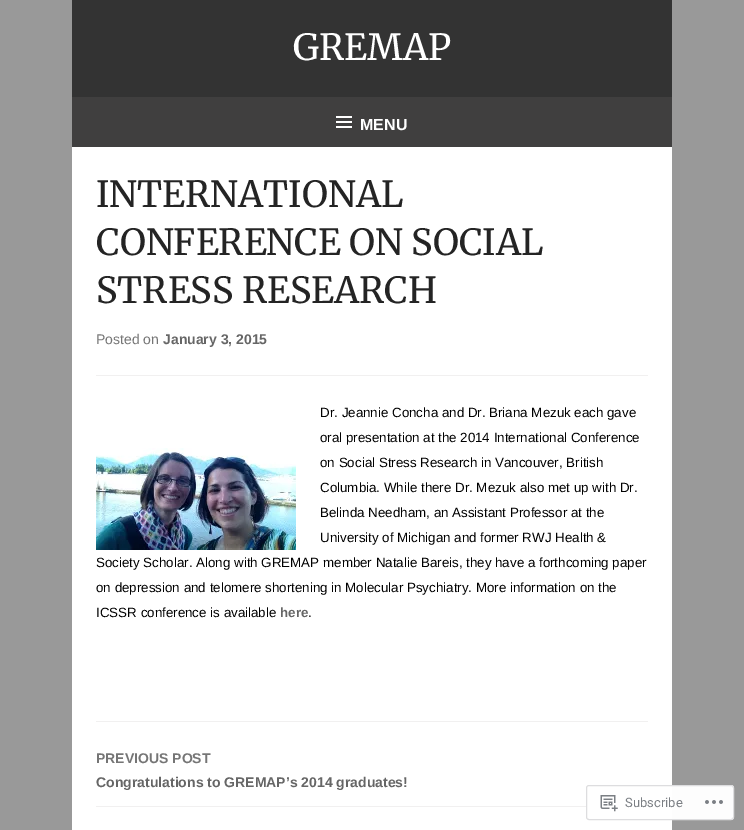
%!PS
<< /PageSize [744 830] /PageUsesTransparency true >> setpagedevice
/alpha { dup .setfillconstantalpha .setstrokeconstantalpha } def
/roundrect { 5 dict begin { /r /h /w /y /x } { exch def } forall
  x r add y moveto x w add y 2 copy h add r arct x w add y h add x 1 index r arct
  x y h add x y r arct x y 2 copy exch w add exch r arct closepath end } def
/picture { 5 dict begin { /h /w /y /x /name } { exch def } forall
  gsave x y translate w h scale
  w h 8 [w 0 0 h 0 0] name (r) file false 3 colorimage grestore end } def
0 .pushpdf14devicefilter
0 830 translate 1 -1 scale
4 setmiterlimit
0.6 setgray
0 0 744 830 rectfill
1 setgray
72 147 600 683 rectfill
0.2 setgray
72 0 600 97 rectfill
/Merriweather-Light [36 0 0 -36 0 0] selectfont
1 setgray
293 60 moveto (GREMAP) show
0.251 0.247 0.247 setrgbcolor
72 97 600 50 rectfill
(img1.rgb) 336 116 16 12 picture
/Arimo-Bold [16 0 0 -16 0 0] selectfont
1 setgray
360 130 moveto (MENU) show
/Merriweather-Light [36 0 0 -36 0 0] selectfont
0.141 setgray
96 207 moveto (INTERNATIONAL) show
96 255 moveto (CONFERENCE ON SOCIAL) show
96 303 moveto (STRESS RESEARCH) show
0.945 0.941 0.941 setrgbcolor
96 375 552 1 rectfill
/Arimo-Regular [14 0 0 -14 0 0] selectfont
0.459 setgray
96 344 moveto (Posted on) show
/Arimo-Bold [14 0 0 -14 0 0] selectfont
0.4 setgray
163 344 moveto (January 3, 2015) show
/LiberationSans-Regular [13.35 0 0 -13.35 0 0] selectfont
0 setgray
320 417 moveto (Dr. Jeannie Concha and Dr. Briana Mezuk each gave) show
320 442 moveto (oral presentation at the 2014 International Conference) show
(img2.rgb) 96 448 200 102 picture
320 467 moveto (on Social Stress Research in Vancouver, British) show
320 492 moveto (Columbia. While there Dr. Mezuk also met up with Dr.) show
320 517 moveto (Belinda Needham, an Assistant Professor at the) show
320 542 moveto (University of Michigan and former RWJ Health &) show
96 567 moveto (Society Scholar. Along with GREMAP member Natalie Bareis, they have a forthcoming paper) show
96 592 moveto (on depression and telomere shortening in Molecular Psychiatry. More information on the) show
96 617 moveto (ICSSR conference is available) show
/LiberationSans-Bold [13.35 0 0 -13.35 0 0] selectfont
0.4 setgray
280 617 moveto (here) show
/LiberationSans-Regular [13.35 0 0 -13.35 0 0] selectfont
0 setgray
308 617 moveto (.) show
0.945 0.941 0.941 setrgbcolor
96 721 552 1 rectfill
/Arimo-Bold [14 0 0 -14 0 0] selectfont
0.459 setgray
96 763 moveto (PREVIOUS POST) show
0.4 setgray
96 787 moveto (Congratulations to GREMAP’s 2014 graduates!) show
0.945 0.941 0.941 setrgbcolor
96 806 552 1 rectfill
0.98 alpha
1 setgray
586 785 148 35 3 roundrect fill
0.863 0.863 0.871 setrgbcolor
586.5 785.5 147 34 2.5 roundrect stroke
1 alpha
(img3.rgb) 600 795 18 17 picture
/Roboto-Regular [13 0 0 -13 0 0] selectfont
0.482 0.498 0.518 setrgbcolor
625 807 moveto (Subscribe) show
(img4.rgb) 705 800 18 4 picture
.poppdf14devicefilter showpage
